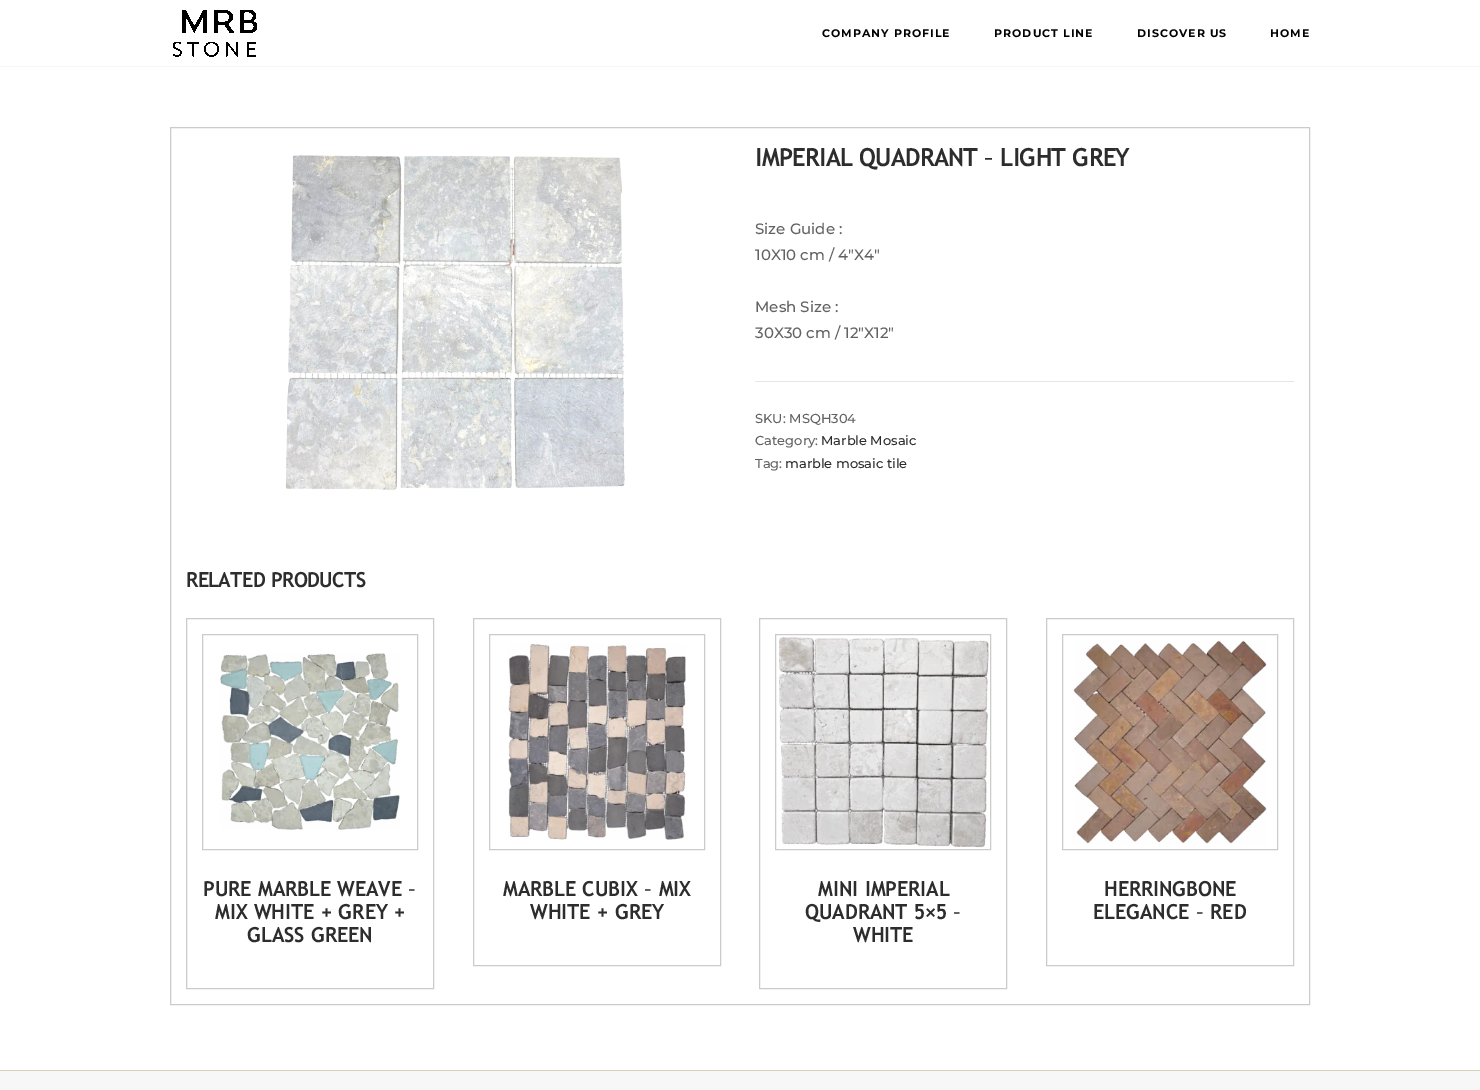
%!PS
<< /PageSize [1480 1090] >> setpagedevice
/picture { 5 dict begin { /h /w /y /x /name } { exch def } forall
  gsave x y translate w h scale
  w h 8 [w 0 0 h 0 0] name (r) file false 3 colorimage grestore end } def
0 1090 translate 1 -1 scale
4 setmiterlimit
1 setgray
0 0 1480 1090 rectfill
0.969 setgray
0 66 1480 1 rectfill
(img1.rgb) 173 10 84 47 picture
/Montserrat-Bold [11 0 0 -11 0 0] selectfont
0 setgray
822 37 moveto 1 0 (COMPANY PROFILE) ashow
994 37 moveto 1 0 (PRODUCT LINE) ashow
1137 37 moveto 1 0 (DISCOVER US) ashow
1270 37 moveto 1 0 (HOME) ashow
0.796 setgray
170.5 127.5 1139 877 rectstroke
(img2.rgb) 286 155 339 335 picture
/TrebuchetMS-Bold [24 0 0 -24 0 0] selectfont
0.176 setgray
755 166 moveto (IMPERIAL QUADRANT – LIGHT GREY) show
/Montserrat-Medium [15 0 0 -15 0 0] selectfont
0.384 setgray
755 234 moveto (Size Guide :) show
755 260 moveto (10X10 cm / 4″X4″) show
755 312 moveto (Mesh Size :) show
755 338 moveto (30X30 cm / 12″X12″) show
0.902 setgray
755 381 539 1 rectfill
/Montserrat-Medium [13 0 0 -13 0 0] selectfont
0.384 setgray
755 423 moveto (SKU: MSQH304) show
755 445 moveto (Category:) show
0.176 setgray
821 445 moveto (Marble Mosaic) show
0.384 setgray
755 468 moveto (Tag:) show
0.176 setgray
785 468 moveto (marble mosaic tile) show
/TrebuchetMS-Bold [20 0 0 -20 0 0] selectfont
186 587 moveto (RELATED PRODUCTS) show
0.796 setgray
186.5 618.5 247 370 rectstroke
202.5 634.5 215 215 rectstroke
(img3.rgb) 220 653 180 177 picture
0.176 setgray
203 896 moveto 0.5 0 (PURE MARBLE WEAVE –) ashow
215 919 moveto 0.5 0 (MIX WHITE + GREY +) ashow
247 942 moveto 0.5 0 (GLASS GREEN) ashow
0.796 setgray
473.5 618.5 247 347 rectstroke
489.5 634.5 215 215 rectstroke
(img4.rgb) 508 644 178 196 picture
0.176 setgray
503 896 moveto 0.5 0 (MARBLE CUBIX – MIX) ashow
530 919 moveto 0.5 0 (WHITE + GREY) ashow
0.796 setgray
759.5 618.5 247 370 rectstroke
775.5 634.5 215 215 rectstroke
(img5.rgb) 779 637 210 211 picture
0.176 setgray
818 896 moveto 0.5 0 (MINI IMPERIAL) ashow
805 919 moveto 0.5 0 (QUADRANT 5×5 –) ashow
853 942 moveto 0.5 0 (WHITE) ashow
0.796 setgray
1046.5 618.5 247 347 rectstroke
1062.5 634.5 215 215 rectstroke
(img6.rgb) 1073 640 194 204 picture
0.176 setgray
1104 896 moveto 0.5 0 (HERRINGBONE) ashow
1093 919 moveto 0.5 0 (ELEGANCE – RED) ashow
0.969 setgray
0 1071 1480 19 rectfill
0.843 0.82 0.733 setrgbcolor
0 1070 1480 1 rectfill
showpage
